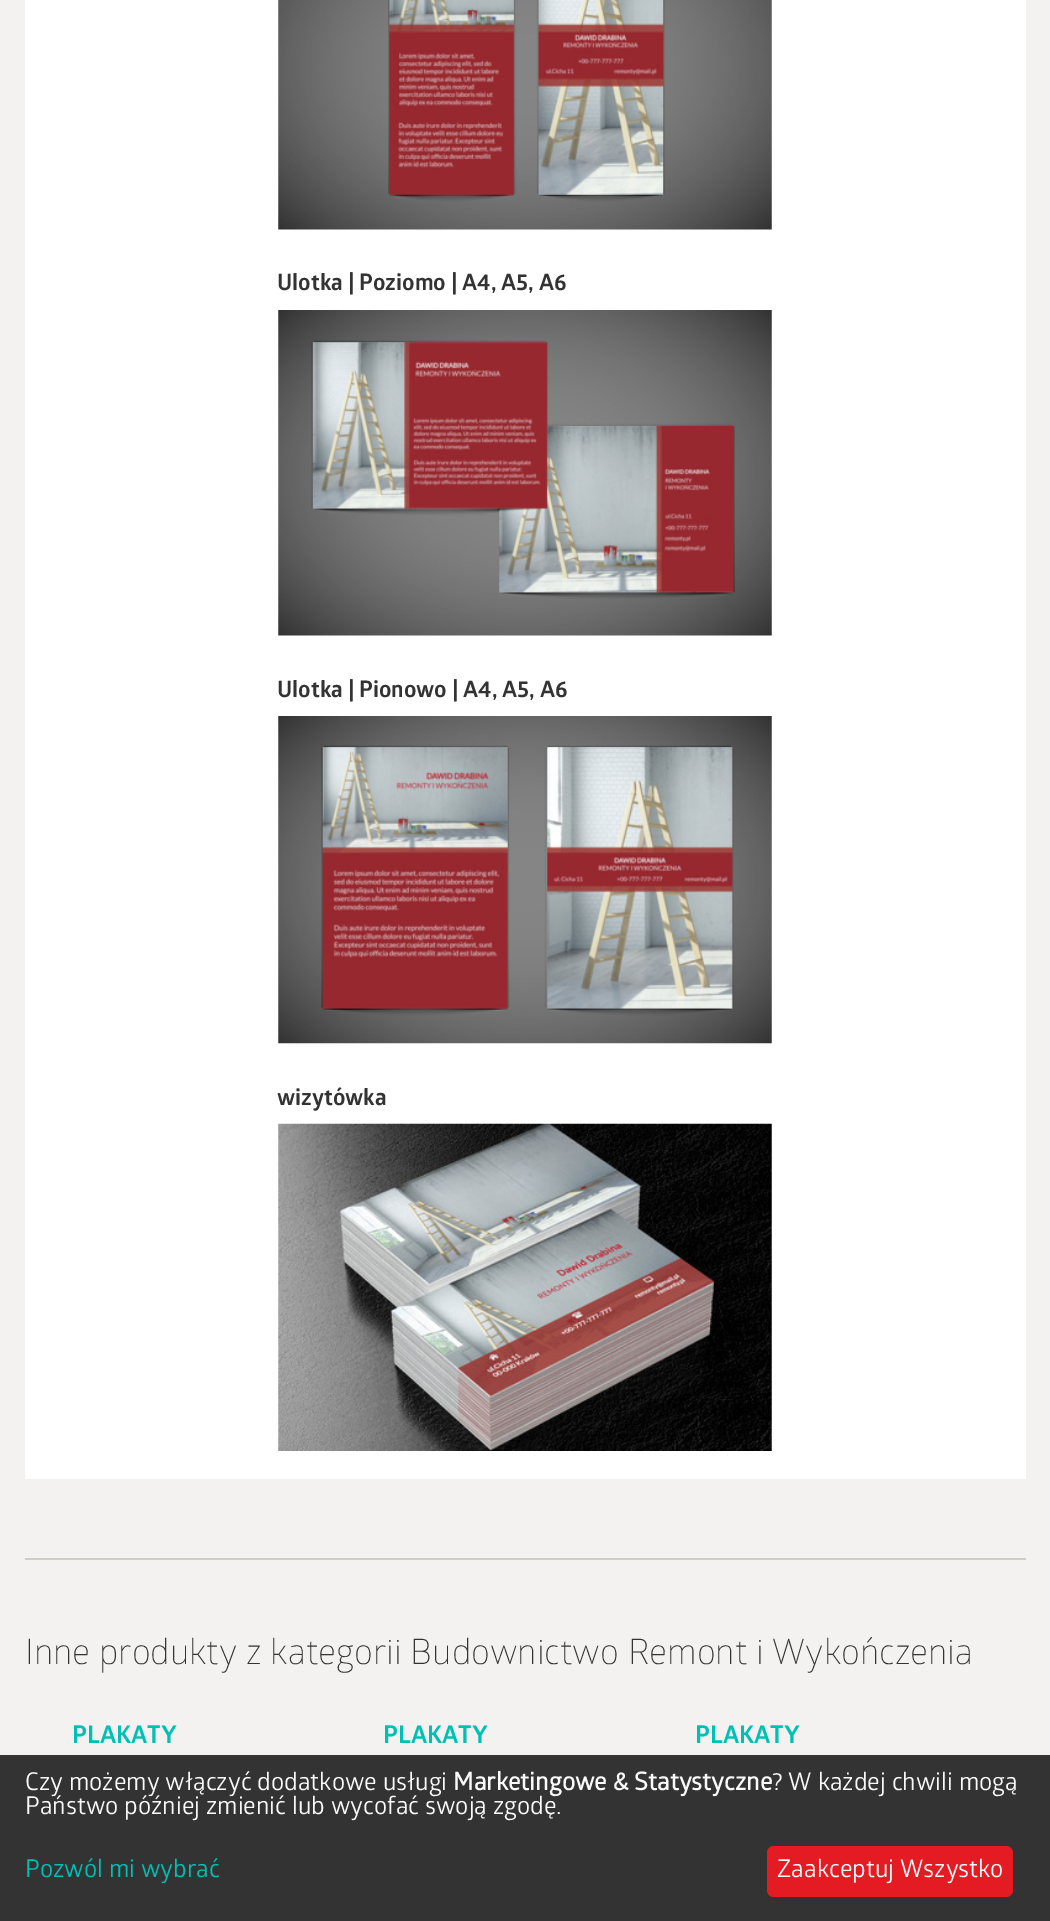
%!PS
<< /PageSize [1050 1921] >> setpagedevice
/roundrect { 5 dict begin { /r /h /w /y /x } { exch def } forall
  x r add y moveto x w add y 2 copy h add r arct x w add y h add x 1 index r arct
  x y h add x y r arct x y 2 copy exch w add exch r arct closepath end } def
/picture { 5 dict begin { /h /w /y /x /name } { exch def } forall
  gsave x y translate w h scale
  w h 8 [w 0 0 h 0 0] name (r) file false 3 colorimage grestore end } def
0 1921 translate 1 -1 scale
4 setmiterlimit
0.953 0.949 0.941 setrgbcolor
0 0 1050 1921 rectfill
1 setgray
25 0 1001 1479 rectfill
(img1.rgb) 278 0 494 230 picture
/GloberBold-Bold [22.75 0 0 -22.75 0 0] selectfont
0.2 setgray
277 290 moveto (Ulotka | Poziomo | A4, A5, A6) show
(img2.rgb) 278 310 494 326 picture
277 697 moveto (Ulotka | Pionowo | A4, A5, A6) show
(img3.rgb) 278 716 494 328 picture
277 1105 moveto (wizytówka) show
(img4.rgb) 278 1123 494 328 picture
0.816 0.8 0.78 setrgbcolor
25 1558 1001 2 rectfill
/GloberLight-Light [35 0 0 -35 0 0] selectfont
0.2 setgray
25 1664 moveto (Inne produkty z kategorii Budownictwo Remont i Wykończenia) show
/GloberBold-Bold [24.5 0 0 -24.5 0 0] selectfont
0 0.749 0.706 setrgbcolor
72 1743 moveto (PLAKATY) show
383 1743 moveto (PLAKATY) show
695 1743 moveto (PLAKATY) show
0.2 setgray
0 1755 1050 166 rectfill
/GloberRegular-Regular [24.5 0 0 -24.5 0 0] selectfont
0.98 setgray
25 1790 moveto (Czy możemy włączyć dodatkowe usługi) show
/GloberRegular-Bold [24.5 0 0 -24.5 0 0] selectfont
453 1790 moveto (Marketingowe & Statystyczne) show
/GloberRegular-Regular [24.5 0 0 -24.5 0 0] selectfont
772 1790 moveto (? W każdej chwili mogą) show
25 1814 moveto (Państwo później zmienić lub wycofać swoją zgodę.) show
0 0.749 0.706 setrgbcolor
25 1877 moveto (Pozwól mi wybrać) show
0.894 0.106 0.137 setrgbcolor
767 1846 246 51 7 roundrect fill
0.98 setgray
777 1877 moveto (Zaakceptuj Wszystko) show
showpage
